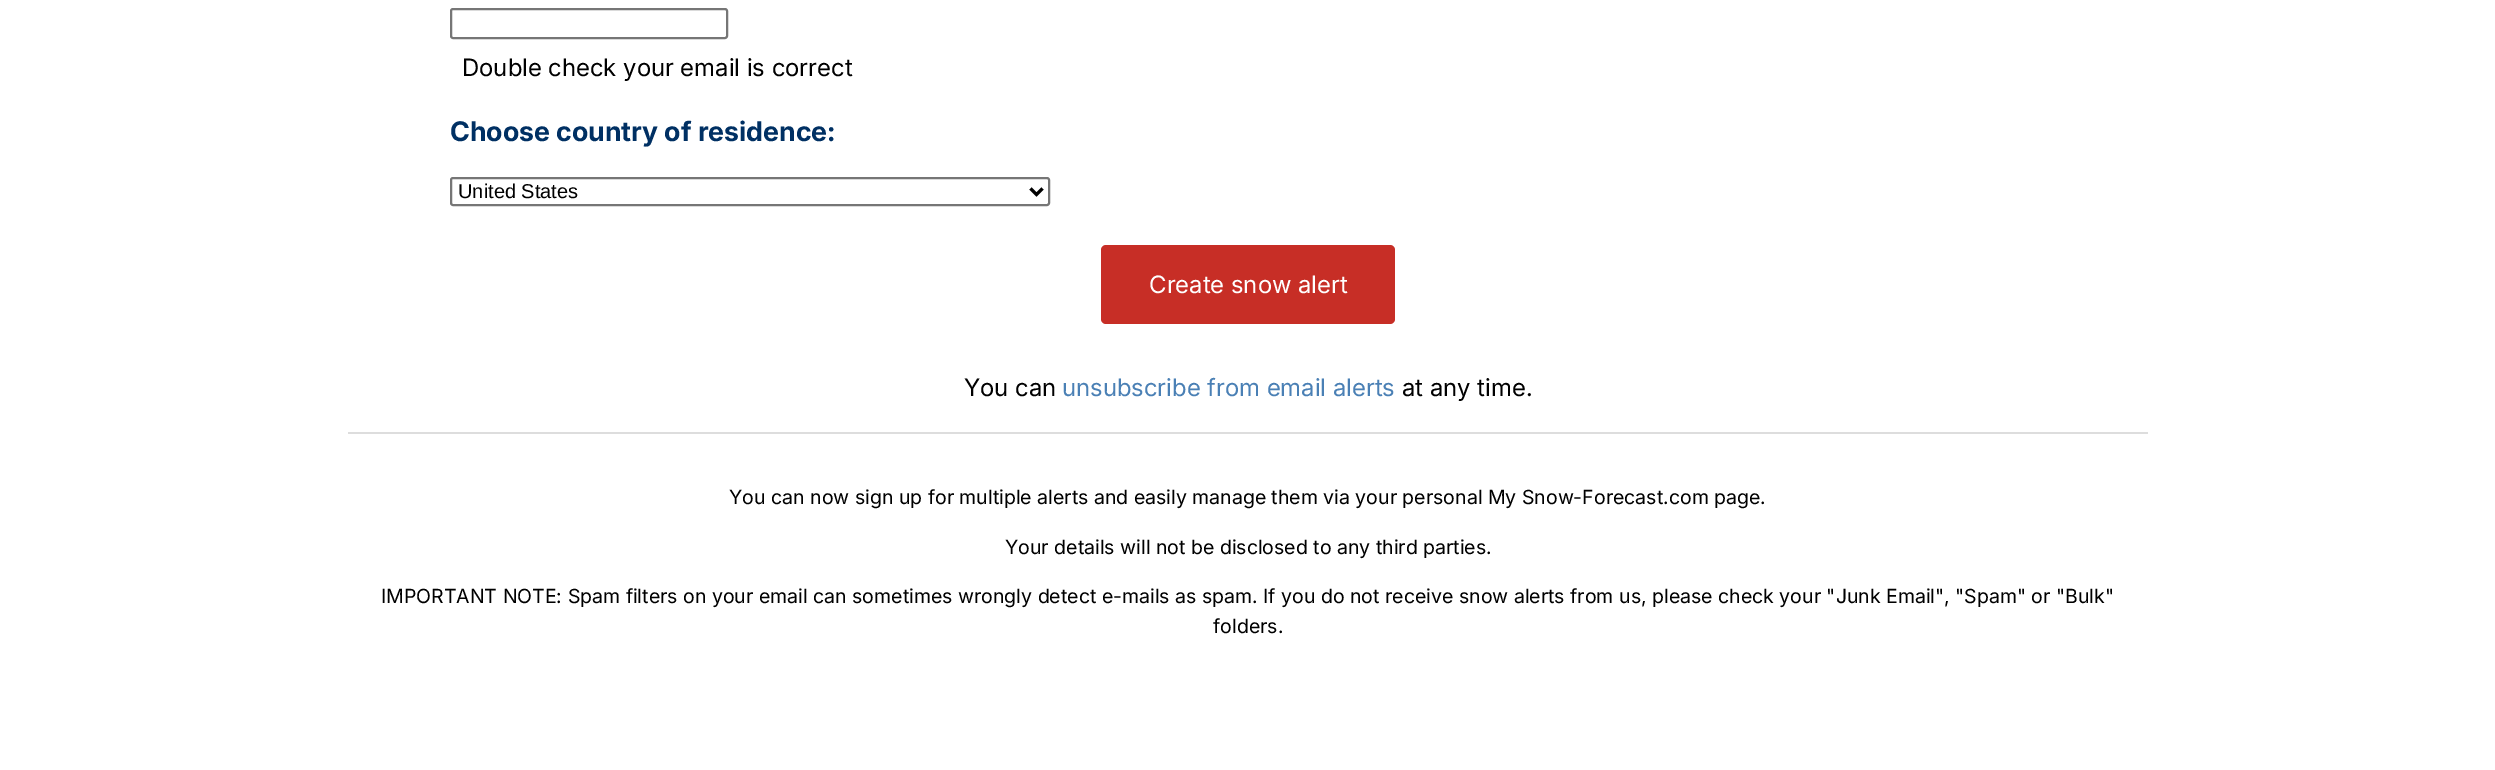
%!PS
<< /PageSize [2495 770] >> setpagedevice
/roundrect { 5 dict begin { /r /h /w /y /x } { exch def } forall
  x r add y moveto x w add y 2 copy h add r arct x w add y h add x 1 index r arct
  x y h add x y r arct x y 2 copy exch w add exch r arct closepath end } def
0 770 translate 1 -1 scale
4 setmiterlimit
1 setgray
0 0 2495 770 rectfill
0.463 setgray
2 setlinewidth
451 9 276 29 2 roundrect stroke
/Inter-Regular [24 0 0 -24 0 0] selectfont
0 setgray
462 76 moveto (Double check your email is correct) show
/Inter-Bold [27 0 0 -27 0 0] selectfont
0 0.188 0.388 setrgbcolor
450 141 moveto (Choose country of residence:) show
0.463 setgray
451 178 598 27 2 roundrect stroke
0 setgray
3 setlinewidth
newpath 1030.5 188.5 moveto 1036.5 194.5 lineto 1042.5 188.5 lineto stroke
/LiberationSans-Regular [20 0 0 -20 0 0] selectfont
458 198 moveto (United States) show
0.78 0.18 0.149 setrgbcolor
1101 245 294 79 5 roundrect fill
/Inter-Regular [24 0 0 -24 0 0] selectfont
1 setgray
1149 293 moveto (Create snow alert) show
0 setgray
964 396 moveto (You can) show
0.29 0.502 0.71 setrgbcolor
1062 396 moveto (unsubscribe from email alerts) show
0 setgray
1402 396 moveto (at any time.) show
0.867 setgray
348 432 1800 2 rectfill
/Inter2-Regular [19.5 0 0 -19.5 0 0] selectfont
0 setgray
729 504 moveto (You can now sign up for multiple alerts and easily manage them via your personal My Snow-Forecast.com page.) show
1005 554 moveto (Your details will not be disclosed to any third parties.) show
381 603 moveto (IMPORTANT NOTE: Spam filters on your email can sometimes wrongly detect e-mails as spam. If you do not receive snow alerts from us, please check your "Junk Email", "Spam" or "Bulk") show
1213 633 moveto (folders.) show
showpage
